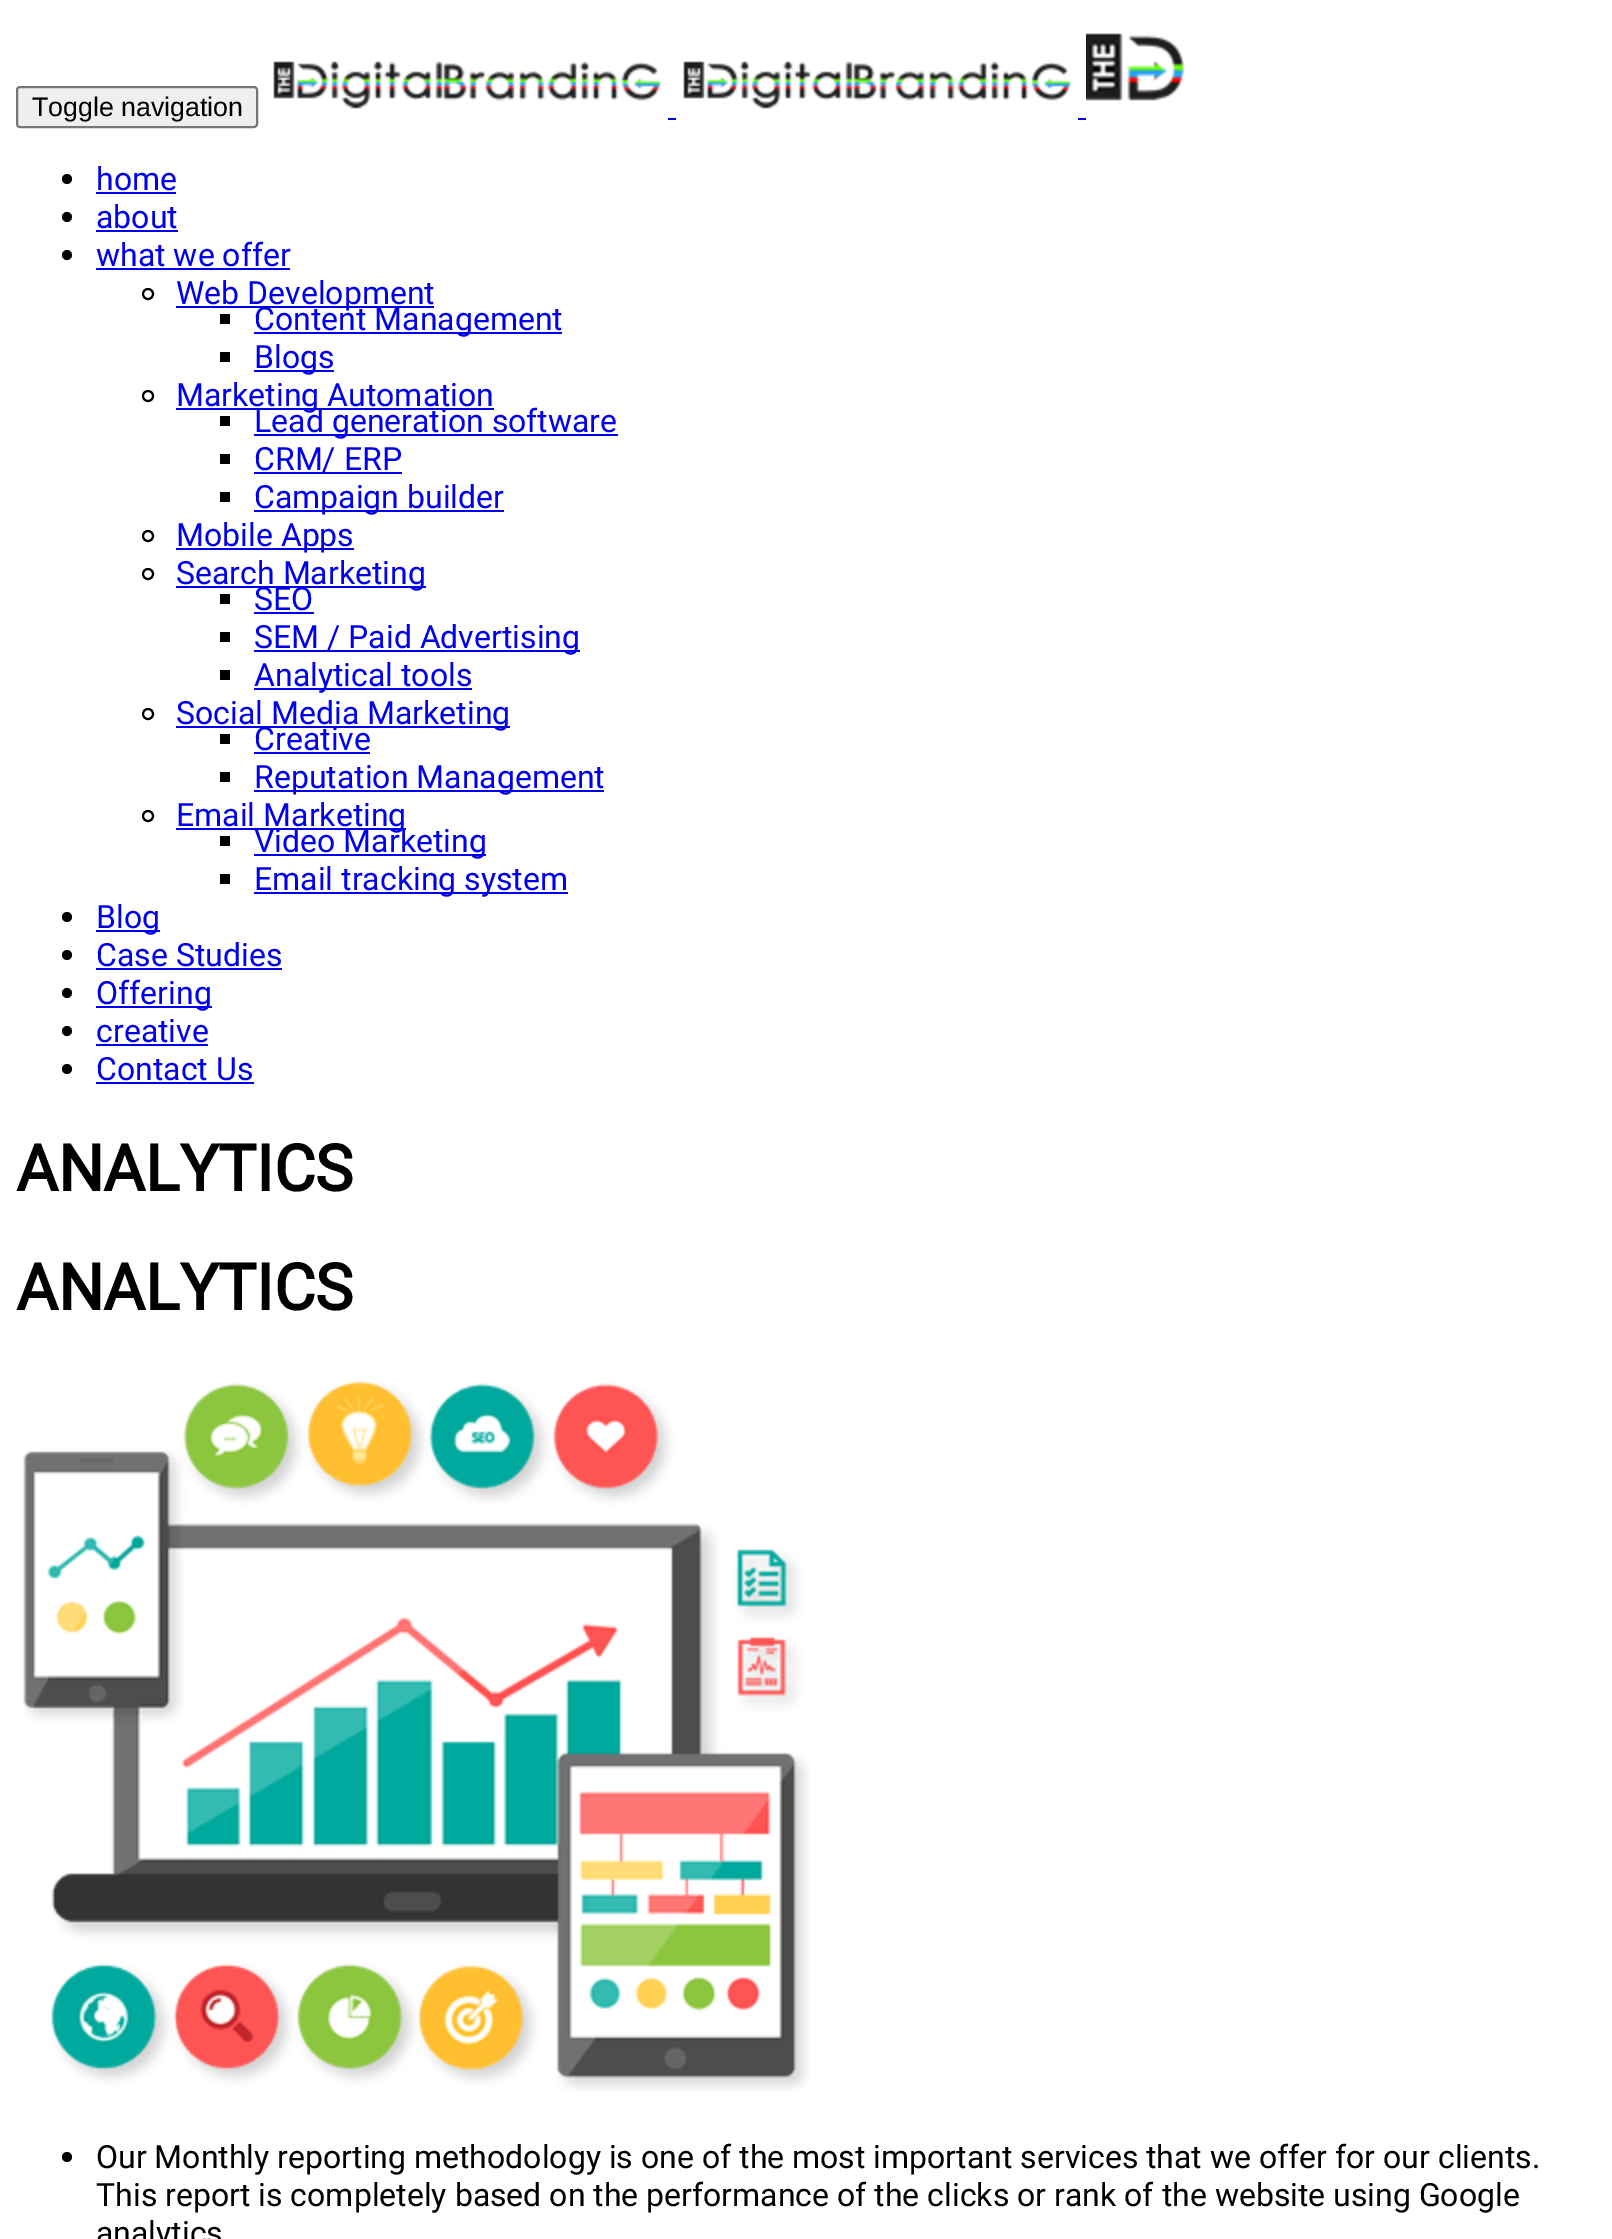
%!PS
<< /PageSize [1612 2239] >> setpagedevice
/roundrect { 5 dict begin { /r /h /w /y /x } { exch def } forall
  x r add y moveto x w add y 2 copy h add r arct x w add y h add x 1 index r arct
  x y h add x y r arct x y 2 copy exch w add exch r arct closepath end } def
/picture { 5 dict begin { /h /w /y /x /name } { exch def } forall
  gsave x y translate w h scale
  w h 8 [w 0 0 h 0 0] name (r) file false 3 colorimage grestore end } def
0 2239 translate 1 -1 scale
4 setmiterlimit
1 setgray
0 0 1612 2239 rectfill
0.937 setgray
17 87 240 40 3 roundrect gsave fill grestore
0.463 setgray
2 setlinewidth
stroke
/LiberationSans-Regular [26.75 0 0 -26.75 0 0] selectfont
0 setgray
32 116 moveto (Toggle navigation) show
(img1.rgb) 273 61 388 48 picture
0 0 0.933 setrgbcolor
668 118 8 2 rectfill
(img1.rgb) 683 61 388 48 picture
1078 118 8 2 rectfill
(img2.rgb) 1086 33 99 68 picture
0 setgray
newpath 67 179 5 0 360 arc closepath fill
/Roboto-Regular [32 0 0 -32 0 0] selectfont
0 0 0.933 setrgbcolor
96 190 moveto (home) show
96 192 80 2 rectfill
0 setgray
newpath 67 217 5 0 360 arc closepath fill
0 0 0.933 setrgbcolor
96 228 moveto (about) show
96 230 82 2 rectfill
0 setgray
newpath 67 255 5 0 360 arc closepath fill
0 0 0.933 setrgbcolor
96 266 moveto (what we offer) show
96 268 194 2 rectfill
0 setgray
newpath 148 294 5 0 360 arc closepath stroke
0 0 0.933 setrgbcolor
176 306 258 2 rectfill
176 304 moveto (Web Development) show
0 setgray
220 314 10 10 rectfill
0 0 0.933 setrgbcolor
254 332 308 2 rectfill
254 330 moveto (Content Management) show
0 setgray
220 352 10 10 rectfill
0 0 0.933 setrgbcolor
254 370 80 2 rectfill
254 368 moveto (Blogs) show
0 setgray
newpath 148 396 5 0 360 arc closepath stroke
0 0 0.933 setrgbcolor
176 408 318 2 rectfill
176 406 moveto (Marketing Automation) show
0 setgray
220 416 10 10 rectfill
0 0 0.933 setrgbcolor
254 434 364 2 rectfill
254 432 moveto (Lead generation software) show
0 setgray
220 454 10 10 rectfill
0 0 0.933 setrgbcolor
254 470 moveto (CRM/ ERP) show
254 472 148 2 rectfill
0 setgray
220 492 10 10 rectfill
0 0 0.933 setrgbcolor
254 510 250 2 rectfill
254 508 moveto (Campaign builder) show
0 setgray
newpath 148 536 5 0 360 arc closepath stroke
0 0 0.933 setrgbcolor
176 548 178 2 rectfill
176 546 moveto (Mobile Apps) show
0 setgray
newpath 148 574 5 0 360 arc closepath stroke
0 0 0.933 setrgbcolor
176 586 250 2 rectfill
176 584 moveto (Search Marketing) show
0 setgray
220 594 10 10 rectfill
0 0 0.933 setrgbcolor
254 610 moveto (SEO) show
254 612 60 2 rectfill
0 setgray
220 632 10 10 rectfill
0 0 0.933 setrgbcolor
254 650 326 2 rectfill
254 648 moveto (SEM / Paid Advertising) show
0 setgray
220 670 10 10 rectfill
0 0 0.933 setrgbcolor
254 688 218 2 rectfill
254 686 moveto (Analytical tools) show
0 setgray
newpath 148 714 5 0 360 arc closepath stroke
0 0 0.933 setrgbcolor
176 726 334 2 rectfill
176 724 moveto (Social Media Marketing) show
0 setgray
220 734 10 10 rectfill
0 0 0.933 setrgbcolor
254 750 moveto (Creative) show
254 752 116 2 rectfill
0 setgray
220 772 10 10 rectfill
0 0 0.933 setrgbcolor
254 790 350 2 rectfill
254 788 moveto (Reputation Management) show
0 setgray
newpath 148 816 5 0 360 arc closepath stroke
0 0 0.933 setrgbcolor
176 828 230 2 rectfill
176 826 moveto (Email Marketing) show
0 setgray
220 836 10 10 rectfill
0 0 0.933 setrgbcolor
254 854 232 2 rectfill
254 852 moveto (Video Marketing) show
0 setgray
220 874 10 10 rectfill
0 0 0.933 setrgbcolor
254 892 314 2 rectfill
254 890 moveto (Email tracking system) show
0 setgray
newpath 67 917 5 0 360 arc closepath fill
0 0 0.933 setrgbcolor
96 930 64 2 rectfill
96 928 moveto (Blog) show
0 setgray
newpath 67 955 5 0 360 arc closepath fill
0 0 0.933 setrgbcolor
96 966 moveto (Case Studies) show
96 968 186 2 rectfill
0 setgray
newpath 67 993 5 0 360 arc closepath fill
0 0 0.933 setrgbcolor
96 1006 116 2 rectfill
96 1004 moveto (Offering) show
0 setgray
newpath 67 1031 5 0 360 arc closepath fill
0 0 0.933 setrgbcolor
96 1042 moveto (creative) show
96 1044 112 2 rectfill
0 setgray
newpath 67 1069 5 0 360 arc closepath fill
0 0 0.933 setrgbcolor
96 1080 moveto (Contact Us) show
96 1082 158 2 rectfill
/Roboto-Bold [64 0 0 -64 0 0] selectfont
0 setgray
16 1191 moveto (ANALYTICS) show
16 1310 moveto (ANALYTICS) show
(img3.rgb) 23 1381 787 711 picture
newpath 67 2157 5 0 360 arc closepath fill
/Roboto-Regular [32 0 0 -32 0 0] selectfont
96 2168 moveto (Our Monthly reporting methodology is one of the most important services that we offer for our clients.) show
96 2206 moveto (This report is completely based on the performance of the clicks or rank of the website using Google) show
96 2244 moveto (analytics) show
showpage
